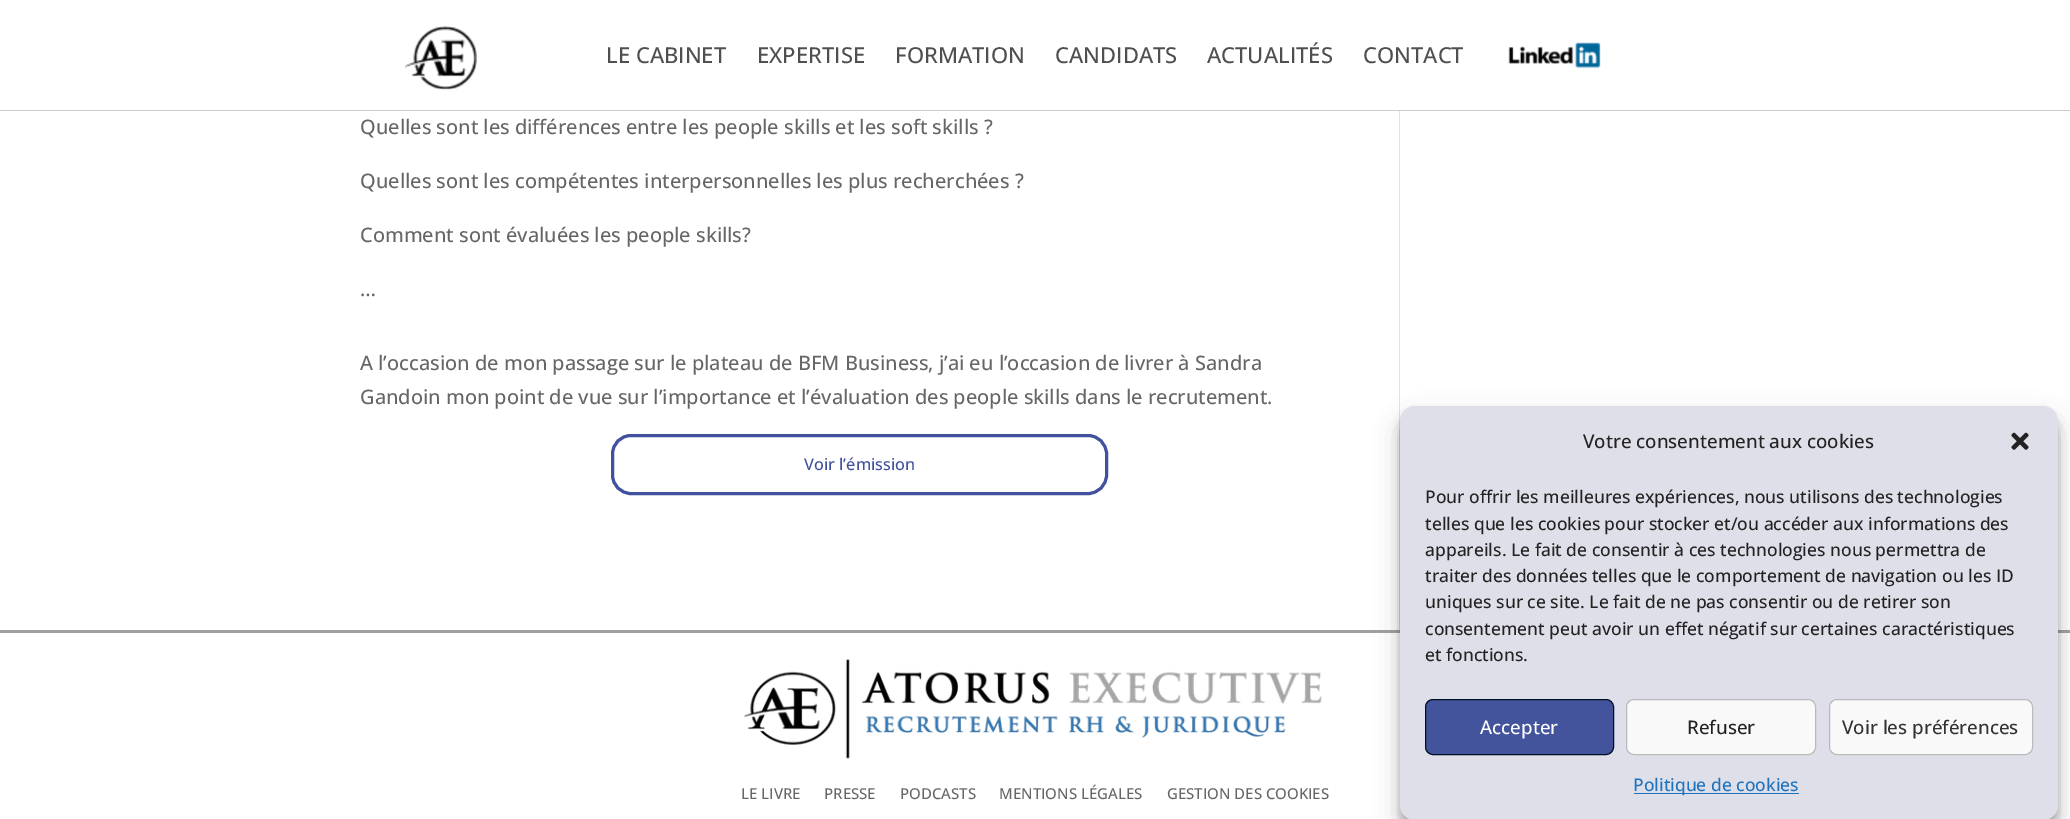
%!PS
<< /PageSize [2070 819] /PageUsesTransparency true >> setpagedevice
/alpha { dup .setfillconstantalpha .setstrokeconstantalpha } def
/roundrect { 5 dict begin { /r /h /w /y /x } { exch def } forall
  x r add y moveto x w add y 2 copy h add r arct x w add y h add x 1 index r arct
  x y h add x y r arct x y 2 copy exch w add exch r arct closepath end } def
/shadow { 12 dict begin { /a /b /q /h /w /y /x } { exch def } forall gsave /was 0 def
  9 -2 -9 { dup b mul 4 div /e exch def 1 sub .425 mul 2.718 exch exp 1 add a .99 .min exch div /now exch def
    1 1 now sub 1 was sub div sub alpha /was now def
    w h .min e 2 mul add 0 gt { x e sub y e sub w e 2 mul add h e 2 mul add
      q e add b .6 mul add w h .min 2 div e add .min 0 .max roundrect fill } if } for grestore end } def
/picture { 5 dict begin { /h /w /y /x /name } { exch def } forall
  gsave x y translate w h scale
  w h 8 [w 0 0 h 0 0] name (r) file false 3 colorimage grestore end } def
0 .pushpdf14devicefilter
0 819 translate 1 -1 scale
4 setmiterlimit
1 setgray
0 0 2070 819 rectfill
0.8 setgray
0 110 2070 1 rectfill
(img1.rgb) 405 26 72 64 picture
/OpenSans-Medium [22 0 0 -22 0 0] selectfont
0.31 setgray
606 63 moveto (LE CABINET) show
757 63 moveto (EXPERTISE) show
895 63 moveto (FORMATION) show
1055 63 moveto (CANDIDATS) show
1207 63 moveto (ACTUALITÉS) show
1363 63 moveto (CONTACT) show
(img2.rgb) 1508 42 93 27 picture
/OpenSans-Medium [20 0 0 -20 0 0] selectfont
0.4 setgray
360 134 moveto (Quelles sont les différences entre les people skills et les soft skills ?) show
360 188 moveto (Quelles sont les compétentes interpersonnelles les plus recherchées ?) show
360 242 moveto (Comment sont évaluées les people skills?) show
360 296 moveto (…) show
360 370 moveto (A l’occasion de mon passage sur le plateau de BFM Business, j’ai eu l’occasion de livrer à Sandra) show
360 404 moveto (Gandoin mon point de vue sur l’importance et l’évaluation des people skills dans le recrutement.) show
0.259 0.318 0.62 setrgbcolor
3 setlinewidth
612.5 435.5 494 58 18.5 roundrect stroke
/OpenSans-Medium [16.25 0 0 -16.25 0 0] selectfont
804 470 moveto (Voir l’émission) show
0.886 setgray
1399 111 1 519 rectfill
0.627 setgray
0 630 2070 3 rectfill
(img3.rgb) 744 658 578 101 picture
/OpenSans-Medium [15 0 0 -15 0 0] selectfont
0.4 setgray
741 799 moveto (LE LIVRE) show
824 799 moveto (PRESSE) show
900 799 moveto (PODCASTS) show
999 799 moveto (MENTIONS LÉGALES) show
1167 799 moveto (GESTION DES COOKIES) show
0 setgray
1400 414 658 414 15 4 0.23 shadow
1400 419 658 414 15 12.5 0.19 shadow
0.875 0.875 0.914 setrgbcolor
1400 406 658 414 15 roundrect fill
/OpenSans-Medium [18.75 0 0 -18.75 0 0] selectfont
0.133 setgray
1583 448 moveto (Votre consentement aux cookies) show
(img4.rgb) 2011 432 18 18 picture
/OpenSans-Medium [17.5 0 0 -17.5 0 0] selectfont
1425 503 moveto (Pour offrir les meilleures expériences, nous utilisons des technologies) show
1425 530 moveto (telles que les cookies pour stocker et/ou accéder aux informations des) show
1425 556 moveto (appareils. Le fait de consentir à ces technologies nous permettra de) show
1425 582 moveto (traiter des données telles que le comportement de navigation ou les ID) show
1425 608 moveto (uniques sur ce site. Le fait de ne pas consentir ou de retirer son) show
1425 635 moveto (consentement peut avoir un effet négatif sur certaines caractéristiques) show
1425 661 moveto (et fonctions.) show
0.267 0.329 0.612 setrgbcolor
1425.5 699.5 188 55 7.5 roundrect gsave fill grestore
0 0.067 0.149 setrgbcolor
1 setlinewidth
stroke
/OpenSans-Medium [18.75 0 0 -18.75 0 0] selectfont
1 setgray
1480 734 moveto (Accepter) show
0.976 setgray
1626.5 699.5 189 55 7.5 roundrect gsave fill grestore
0.729 setgray
stroke
0.133 setgray
1687 734 moveto (Refuser) show
0.976 setgray
1829.5 699.5 203 55 7.5 roundrect gsave fill grestore
0.729 setgray
stroke
0.2 setgray
1842 734 moveto (Voir les préférences) show
0.118 0.451 0.745 setrgbcolor
1634 793 165 1 rectfill
/OpenSans-Medium [17.5 0 0 -17.5 0 0] selectfont
1633 791 moveto (Politique de cookies) show
.poppdf14devicefilter showpage
